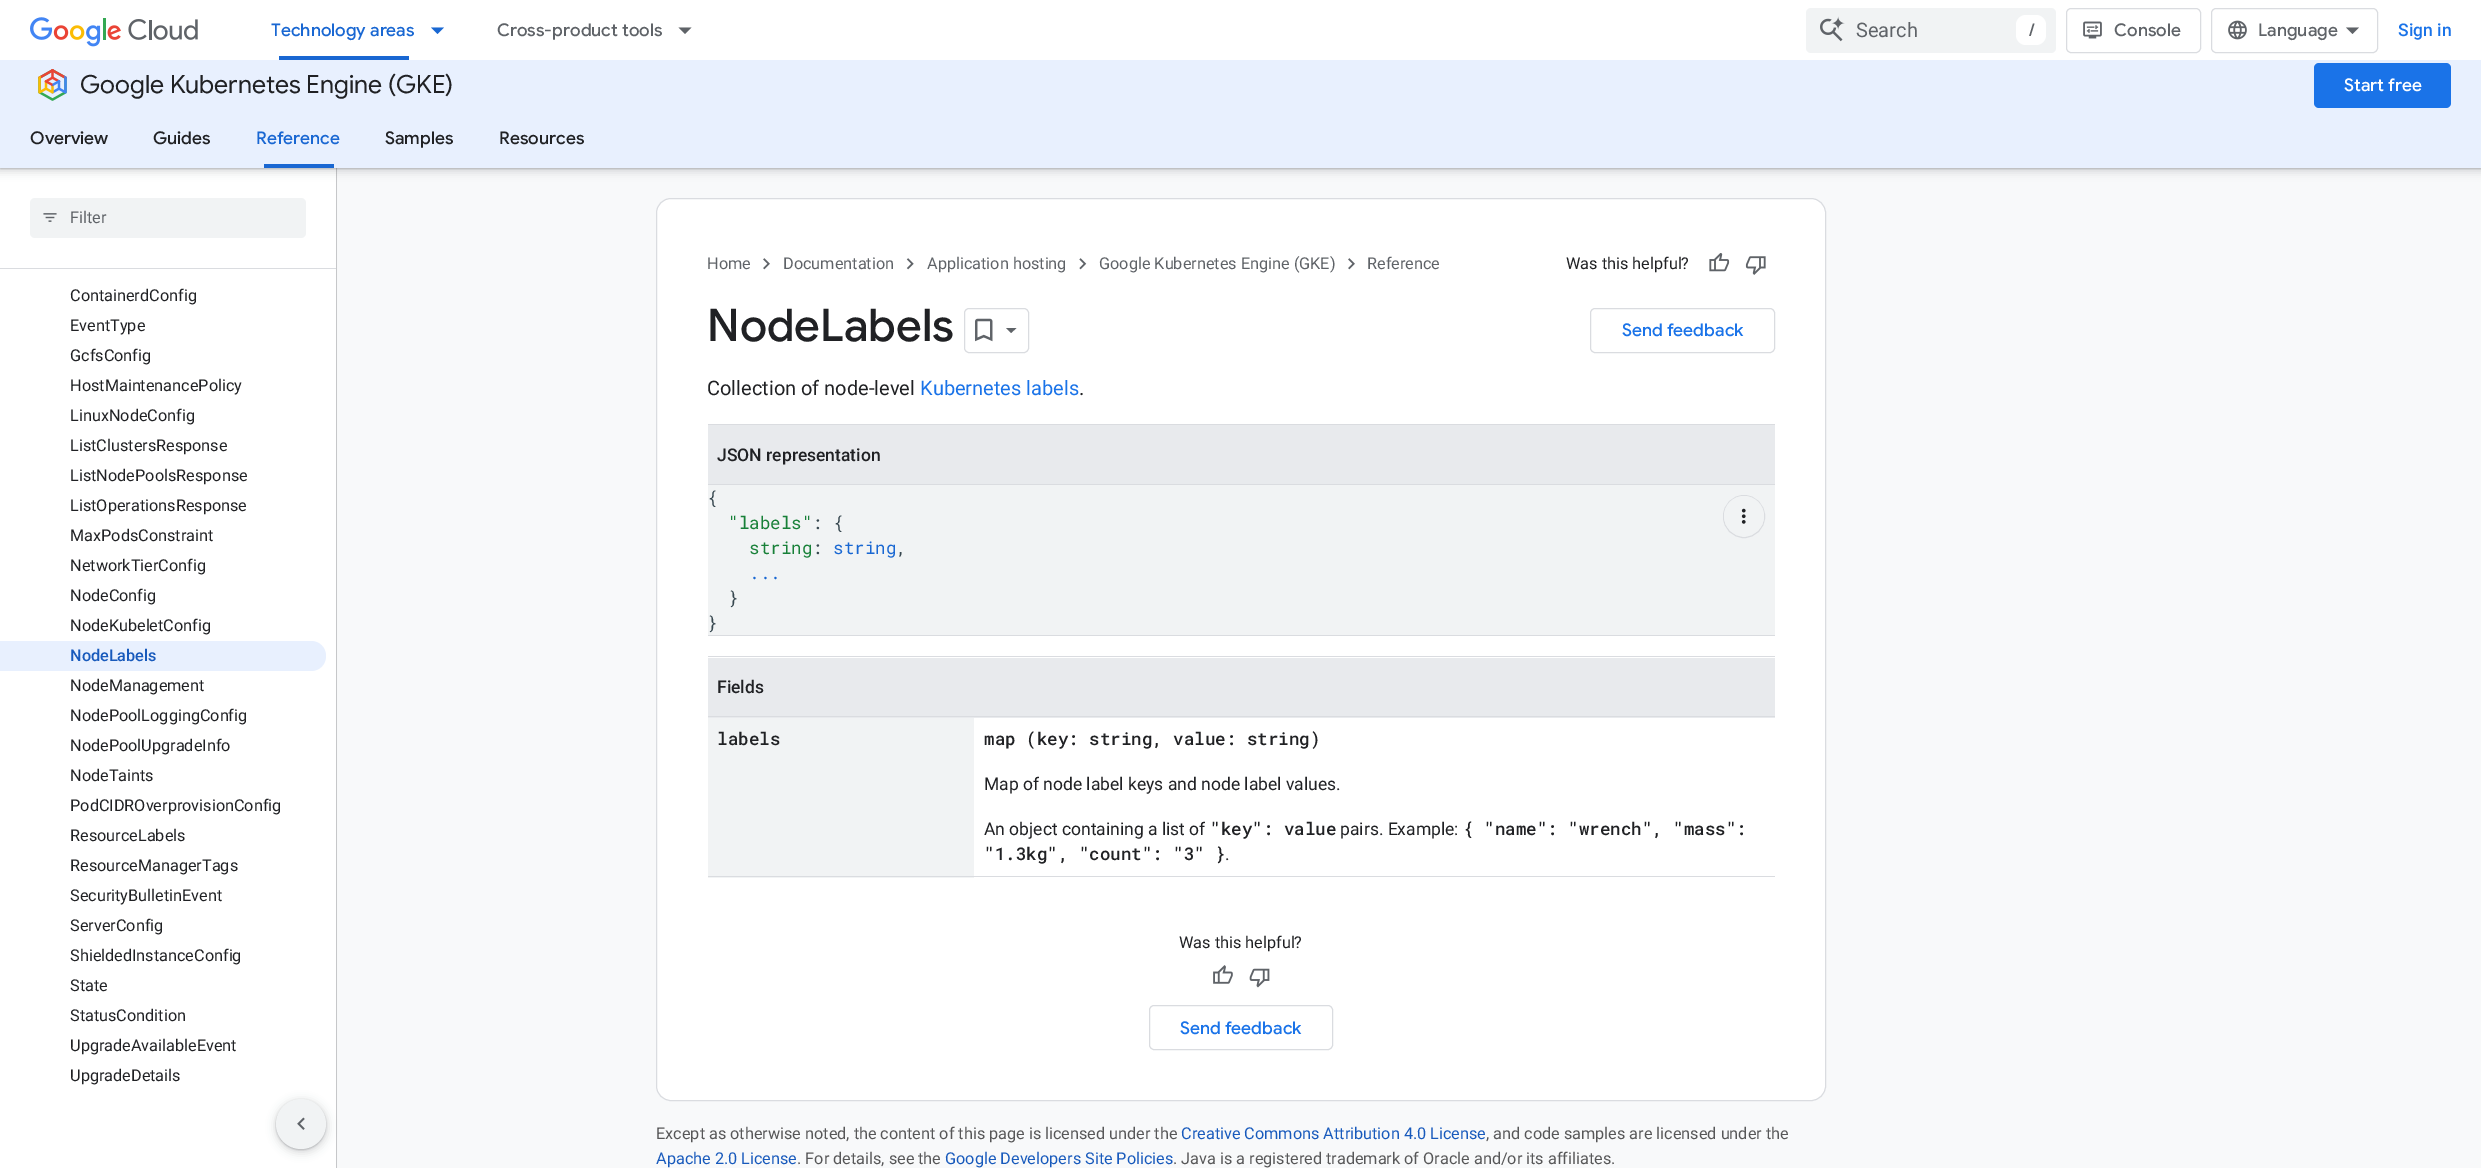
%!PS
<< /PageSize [2481 1168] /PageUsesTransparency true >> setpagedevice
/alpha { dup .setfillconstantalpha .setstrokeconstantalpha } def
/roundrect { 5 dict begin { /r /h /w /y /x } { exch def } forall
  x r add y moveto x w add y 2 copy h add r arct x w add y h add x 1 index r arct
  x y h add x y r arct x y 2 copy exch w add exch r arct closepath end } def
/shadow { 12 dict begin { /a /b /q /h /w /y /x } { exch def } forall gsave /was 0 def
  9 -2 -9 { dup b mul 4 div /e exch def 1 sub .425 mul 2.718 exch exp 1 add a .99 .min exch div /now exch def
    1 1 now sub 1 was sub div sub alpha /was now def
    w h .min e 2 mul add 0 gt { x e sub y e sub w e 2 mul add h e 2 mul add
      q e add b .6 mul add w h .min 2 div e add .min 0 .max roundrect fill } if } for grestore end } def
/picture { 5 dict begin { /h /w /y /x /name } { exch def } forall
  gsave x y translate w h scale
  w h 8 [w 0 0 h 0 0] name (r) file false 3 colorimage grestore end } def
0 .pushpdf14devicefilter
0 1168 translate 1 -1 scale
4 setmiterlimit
0.973 0.976 0.98 setrgbcolor
0 0 2481 1168 rectfill
0.235 0.251 0.263 setrgbcolor
0 1 336 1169 0 0.5 1 shadow
1 setgray
0 269 336 899 rectfill
0 168 336 100 rectfill
0.235 0.251 0.263 setrgbcolor
-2 38 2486 135 0 4 0.15 shadow
0 39 2481 130 0 1 0.3 shadow
1 setgray
0 0 2481 60 rectfill
(img1.rgb) 30 17 168 30 picture
/GoogleSans-Medium [17.5 0 0 -17.5 0 0] selectfont
0.098 0.404 0.824 setrgbcolor
271 36 moveto (Technology areas) show
279 56 130 4 rectfill
newpath 431 27.5 moveto 444 27.5 lineto 437.5 34 lineto closepath fill
0.373 0.388 0.408 setrgbcolor
497 36 moveto (Cross-product tools) show
newpath 678.5 27.5 moveto 691.5 27.5 lineto 685 34 lineto closepath fill
0.945 0.953 0.957 setrgbcolor
1806 8 250 45 5 roundrect fill
(img2.rgb) 1820 16 25 26 picture
/Roboto-Regular [20 0 0 -20 0 0] selectfont
0.373 0.388 0.408 setrgbcolor
1856 37 moveto (Search) show
1 setgray
2016 15 30 30 10 roundrect fill
/GoogleSans-Medium [17.5 0 0 -17.5 0 0] selectfont
0.373 0.388 0.408 setrgbcolor
2029 36 moveto (/) show
0.855 0.863 0.878 setrgbcolor
2066.5 8.5 134 44 4.5 roundrect stroke
(img3.rgb) 2083 21 19 18 picture
0.373 0.388 0.408 setrgbcolor
2114 36 moveto (Console) show
0.855 0.863 0.878 setrgbcolor
2211.5 8.5 166 44 4.5 roundrect stroke
(img4.rgb) 2228 20 19 20 picture
0.373 0.388 0.408 setrgbcolor
2258 36 moveto (Language) show
newpath 2352.5 34 moveto 2346 27.5 lineto 2359 27.5 lineto closepath fill
/Roboto-Medium [17.5 0 0 -17.5 0 0] selectfont
0.102 0.451 0.91 setrgbcolor
2398 36 moveto (Sign in) show
0.91 0.941 0.996 setrgbcolor
0 60 2481 108 rectfill
(img5.rgb) 38 69 29 32 picture
/GoogleSans-Regular [25 0 0 -25 0 0] selectfont
0.125 0.129 0.141 setrgbcolor
80 93 moveto (Google Kubernetes Engine \(GKE\)) show
0.102 0.451 0.91 setrgbcolor
2314 63 137 45 5 roundrect fill
/GoogleSans-Medium [17.5 0 0 -17.5 0 0] selectfont
1 setgray
2344 91 moveto (Start free) show
0.125 0.129 0.141 setrgbcolor
30 144 moveto (Overview) show
153 144 moveto (Guides) show
0.098 0.404 0.824 setrgbcolor
256 144 moveto (Reference) show
264 164 70 4 rectfill
0.125 0.129 0.141 setrgbcolor
385 144 moveto (Samples) show
499 144 moveto (Resources) show
0.855 0.863 0.878 setrgbcolor
0 268 336 1 rectfill
0.945 0.953 0.957 setrgbcolor
30 198 276 40 5 roundrect fill
(img6.rgb) 43 213 14 9 picture
/Roboto-Regular [16.25 0 0 -16.25 0 0] selectfont
0.373 0.388 0.408 setrgbcolor
70 223 moveto (Filter) show
0.125 0.129 0.141 setrgbcolor
70 301 moveto (ContainerdConfig) show
70 331 moveto (EventType) show
70 361 moveto (GcfsConfig) show
70 391 moveto (HostMaintenancePolicy) show
70 421 moveto (LinuxNodeConfig) show
70 451 moveto (ListClustersResponse) show
70 481 moveto (ListNodePoolsResponse) show
70 511 moveto (ListOperationsResponse) show
70 541 moveto (MaxPodsConstraint) show
70 571 moveto (NetworkTierConfig) show
70 601 moveto (NodeConfig) show
70 631 moveto (NodeKubeletConfig) show
0.91 0.941 0.996 setrgbcolor
newpath 0 641 moveto 311 641 lineto 319.5 641 326 647.5 326 656 curveto 326 664.5 319.5 671 311 671 curveto 0 671 lineto closepath fill
/Roboto-Medium [16.25 0 0 -16.25 0 0] selectfont
0.094 0.353 0.737 setrgbcolor
70 661 moveto (NodeLabels) show
/Roboto-Regular [16.25 0 0 -16.25 0 0] selectfont
0.125 0.129 0.141 setrgbcolor
70 691 moveto (NodeManagement) show
70 721 moveto (NodePoolLoggingConfig) show
70 751 moveto (NodePoolUpgradeInfo) show
70 781 moveto (NodeTaints) show
70 811 moveto (PodCIDROverprovisionConfig) show
70 841 moveto (ResourceLabels) show
70 871 moveto (ResourceManagerTags) show
70 901 moveto (SecurityBulletinEvent) show
70 931 moveto (ServerConfig) show
70 961 moveto (ShieldedInstanceConfig) show
70 991 moveto (State) show
70 1021 moveto (StatusCondition) show
70 1051 moveto (UpgradeAvailableEvent) show
70 1081 moveto (UpgradeDetails) show
0.235 0.251 0.263 setrgbcolor
274 1099 55 55 27.5 4 0.15 shadow
276 1100 50 50 25 1 0.3 shadow
0.945 0.953 0.957 setrgbcolor
newpath 301 1124 25 0 360 arc closepath fill
(img7.rgb) 297 1117 8 13 picture
1 setgray
656.5 198.5 1169 902 14.5 roundrect gsave fill grestore
0.855 0.863 0.878 setrgbcolor
stroke
0.373 0.388 0.408 setrgbcolor
707 269 moveto (Home) show
(img8.rgb) 763 258 7 12 picture
783 269 moveto (Documentation) show
(img9.rgb) 906 258 8 12 picture
927 269 moveto (Application hosting) show
(img10.rgb) 1079 258 8 12 picture
1099 269 moveto (Google Kubernetes Engine \(GKE\)) show
(img8.rgb) 1348 258 7 12 picture
1367 269 moveto (Reference) show
0.125 0.129 0.141 setrgbcolor
1566 269 moveto (Was this helpful?) show
(img11.rgb) 1709 253 21 19 picture
(img12.rgb) 1745 256 21 19 picture
/GoogleSans-Medium [45 0 0 -45 0 0] selectfont
707 341 moveto (NodeLabels) show
0.855 0.863 0.878 setrgbcolor
964.5 308.5 64 44 4.5 roundrect stroke
(img13.rgb) 975 318 18 24 picture
0.373 0.388 0.408 setrgbcolor
newpath 1006 328 moveto 1016.5 328 lineto 1011 333 lineto closepath fill
0.855 0.863 0.878 setrgbcolor
1590.5 308.5 184 44 4.5 roundrect stroke
/GoogleSans-Medium [17.5 0 0 -17.5 0 0] selectfont
0.102 0.451 0.91 setrgbcolor
1622 336 moveto (Send feedback) show
/Roboto-Regular [20 0 0 -20 0 0] selectfont
0.125 0.129 0.141 setrgbcolor
707 395 moveto (Collection of node-level) show
0.102 0.451 0.91 setrgbcolor
920 395 moveto (Kubernetes labels) show
0.125 0.129 0.141 setrgbcolor
1079 395 moveto (.) show
0.855 0.863 0.878 setrgbcolor
708 424 1067 1 rectfill
0.91 0.918 0.929 setrgbcolor
708 425 1067 59 rectfill
/Roboto-Medium [17.5 0 0 -17.5 0 0] selectfont
0.125 0.129 0.141 setrgbcolor
717 461 moveto (JSON representation) show
0.855 0.863 0.878 setrgbcolor
708 484 1067 1 rectfill
708 635 1067 1 rectfill
0.945 0.953 0.957 setrgbcolor
708 485 1067 150 rectfill
/RobotoMono-Regular [17.5 0 0 -17.5 0 0] selectfont
0.216 0.278 0.31 setrgbcolor
707 504 moveto ({) show
0.094 0.502 0.22 setrgbcolor
728 529 moveto ("labels") show
0.216 0.278 0.31 setrgbcolor
812 529 moveto (: {) show
0.094 0.502 0.22 setrgbcolor
749 554 moveto (string) show
0.216 0.278 0.31 setrgbcolor
812 554 moveto (:) show
0.098 0.404 0.824 setrgbcolor
833 554 moveto (string) show
0.216 0.278 0.31 setrgbcolor
896 554 moveto (,) show
0.098 0.404 0.824 setrgbcolor
749 579 moveto (...) show
0.216 0.278 0.31 setrgbcolor
728 604 moveto (}) show
707 629 moveto (}) show
0.855 0.863 0.878 setrgbcolor
1723.5 495.5 41 42 20.5 roundrect stroke
0.945 0.953 0.957 setrgbcolor
newpath 1744 516 20 0 360 arc closepath fill
(img14.rgb) 1741 508 5 16 picture
0.855 0.863 0.878 setrgbcolor
708 656 1067 1 rectfill
0.91 0.918 0.929 setrgbcolor
708 658 1067 60 rectfill
/Roboto-Medium [17.5 0 0 -17.5 0 0] selectfont
0.125 0.129 0.141 setrgbcolor
717 693 moveto (Fields) show
0.855 0.863 0.878 setrgbcolor
708 716 1067 1 rectfill
0.945 0.953 0.957 setrgbcolor
708 718 266 160 rectfill
0.855 0.863 0.878 setrgbcolor
708 876 1067 1 rectfill
/RobotoMono-Medium [17.5 0 0 -17.5 0 0] selectfont
0.125 0.129 0.141 setrgbcolor
717 745 moveto (labels) show
984 745 moveto (map \(key: string, value: string\)) show
/Roboto-Regular [17.5 0 0 -17.5 0 0] selectfont
984 790 moveto (Map of node label keys and node label values.) show
984 835 moveto (An object containing a list of) show
/RobotoMono-Medium [17.5 0 0 -17.5 0 0] selectfont
1210 835 moveto ("key": value) show
/Roboto-Regular [17.5 0 0 -17.5 0 0] selectfont
1340 835 moveto (pairs. Example:) show
/RobotoMono-Medium [17.5 0 0 -17.5 0 0] selectfont
1463 835 moveto ({ "name": "wrench", "mass":) show
984 860 moveto ("1.3kg", "count": "3" }) show
/Roboto-Regular [17.5 0 0 -17.5 0 0] selectfont
1225 860 moveto (.) show
/Roboto-Regular [16.25 0 0 -16.25 0 0] selectfont
1179 948 moveto (Was this helpful?) show
(img15.rgb) 1213 965 20 19 picture
(img16.rgb) 1249 968 21 20 picture
0.855 0.863 0.878 setrgbcolor
1149.5 1005.5 183 44 4.5 roundrect stroke
/GoogleSans-Medium [17.5 0 0 -17.5 0 0] selectfont
0.102 0.451 0.91 setrgbcolor
1180 1034 moveto (Send feedback) show
/Roboto-Regular [16.25 0 0 -16.25 0 0] selectfont
0.341 0.341 0.345 setrgbcolor
656 1139 moveto (Except as otherwise noted, the content of this page is licensed under the) show
0.094 0.353 0.737 setrgbcolor
1181 1139 moveto (Creative Commons Attribution 4.0 License) show
0.341 0.341 0.345 setrgbcolor
1486 1139 moveto (, and code samples are licensed under the) show
0.094 0.353 0.737 setrgbcolor
656 1164 moveto (Apache 2.0 License) show
0.341 0.341 0.345 setrgbcolor
797 1164 moveto (. For details, see the) show
0.094 0.353 0.737 setrgbcolor
945 1164 moveto (Google Developers Site Policies) show
0.341 0.341 0.345 setrgbcolor
1173 1164 moveto (. Java is a registered trademark of Oracle and/or its affiliates.) show
.poppdf14devicefilter showpage
